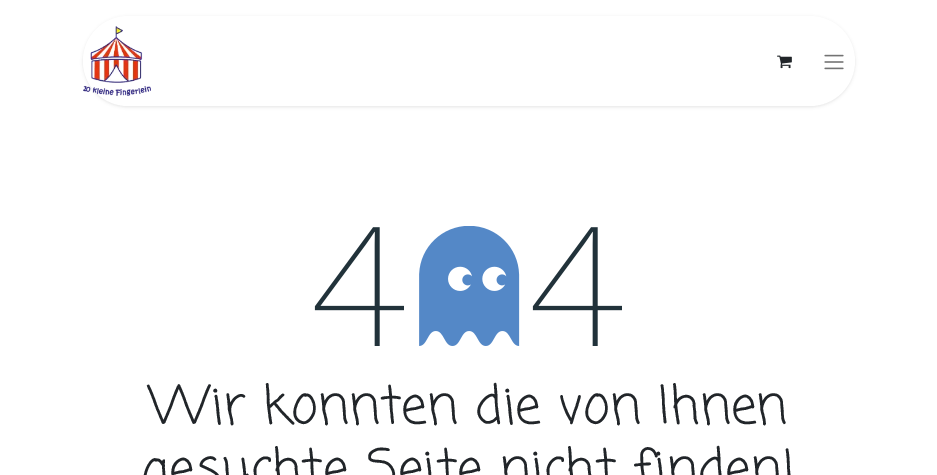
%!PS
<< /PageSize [937 475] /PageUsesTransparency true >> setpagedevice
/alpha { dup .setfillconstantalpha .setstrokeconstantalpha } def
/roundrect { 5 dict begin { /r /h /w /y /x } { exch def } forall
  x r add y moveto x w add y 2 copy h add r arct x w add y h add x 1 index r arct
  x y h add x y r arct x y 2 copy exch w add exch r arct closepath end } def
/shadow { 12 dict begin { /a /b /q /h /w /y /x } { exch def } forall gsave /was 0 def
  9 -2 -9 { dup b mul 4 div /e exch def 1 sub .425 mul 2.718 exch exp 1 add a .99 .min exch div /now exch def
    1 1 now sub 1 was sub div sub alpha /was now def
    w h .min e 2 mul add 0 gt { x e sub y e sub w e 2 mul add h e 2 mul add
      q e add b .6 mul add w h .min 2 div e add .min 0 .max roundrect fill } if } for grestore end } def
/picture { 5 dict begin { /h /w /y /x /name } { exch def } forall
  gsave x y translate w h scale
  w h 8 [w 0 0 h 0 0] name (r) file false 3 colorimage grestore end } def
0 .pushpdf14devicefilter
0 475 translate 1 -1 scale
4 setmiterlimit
1 setgray
0 0 937 475 rectfill
0 setgray
83 17 772 90 45 1.5 0.1 shadow
1 setgray
83 16 772 90 45 roundrect fill
(img1.rgb) 83 26 68 70 picture
(img2.rgb) 777 55 15 14 picture
(img3.rgb) 824 54 20 16 picture
(img4.rgb) 314 226 308 120 picture
/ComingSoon-Regular [52.1 0 0 -52.1 0 0] selectfont
0.129 0.145 0.161 setrgbcolor
149 423 moveto (Wir konnten die von Ihnen) show
141 486 moveto (gesuchte Seite nicht finden!) show
.poppdf14devicefilter showpage
